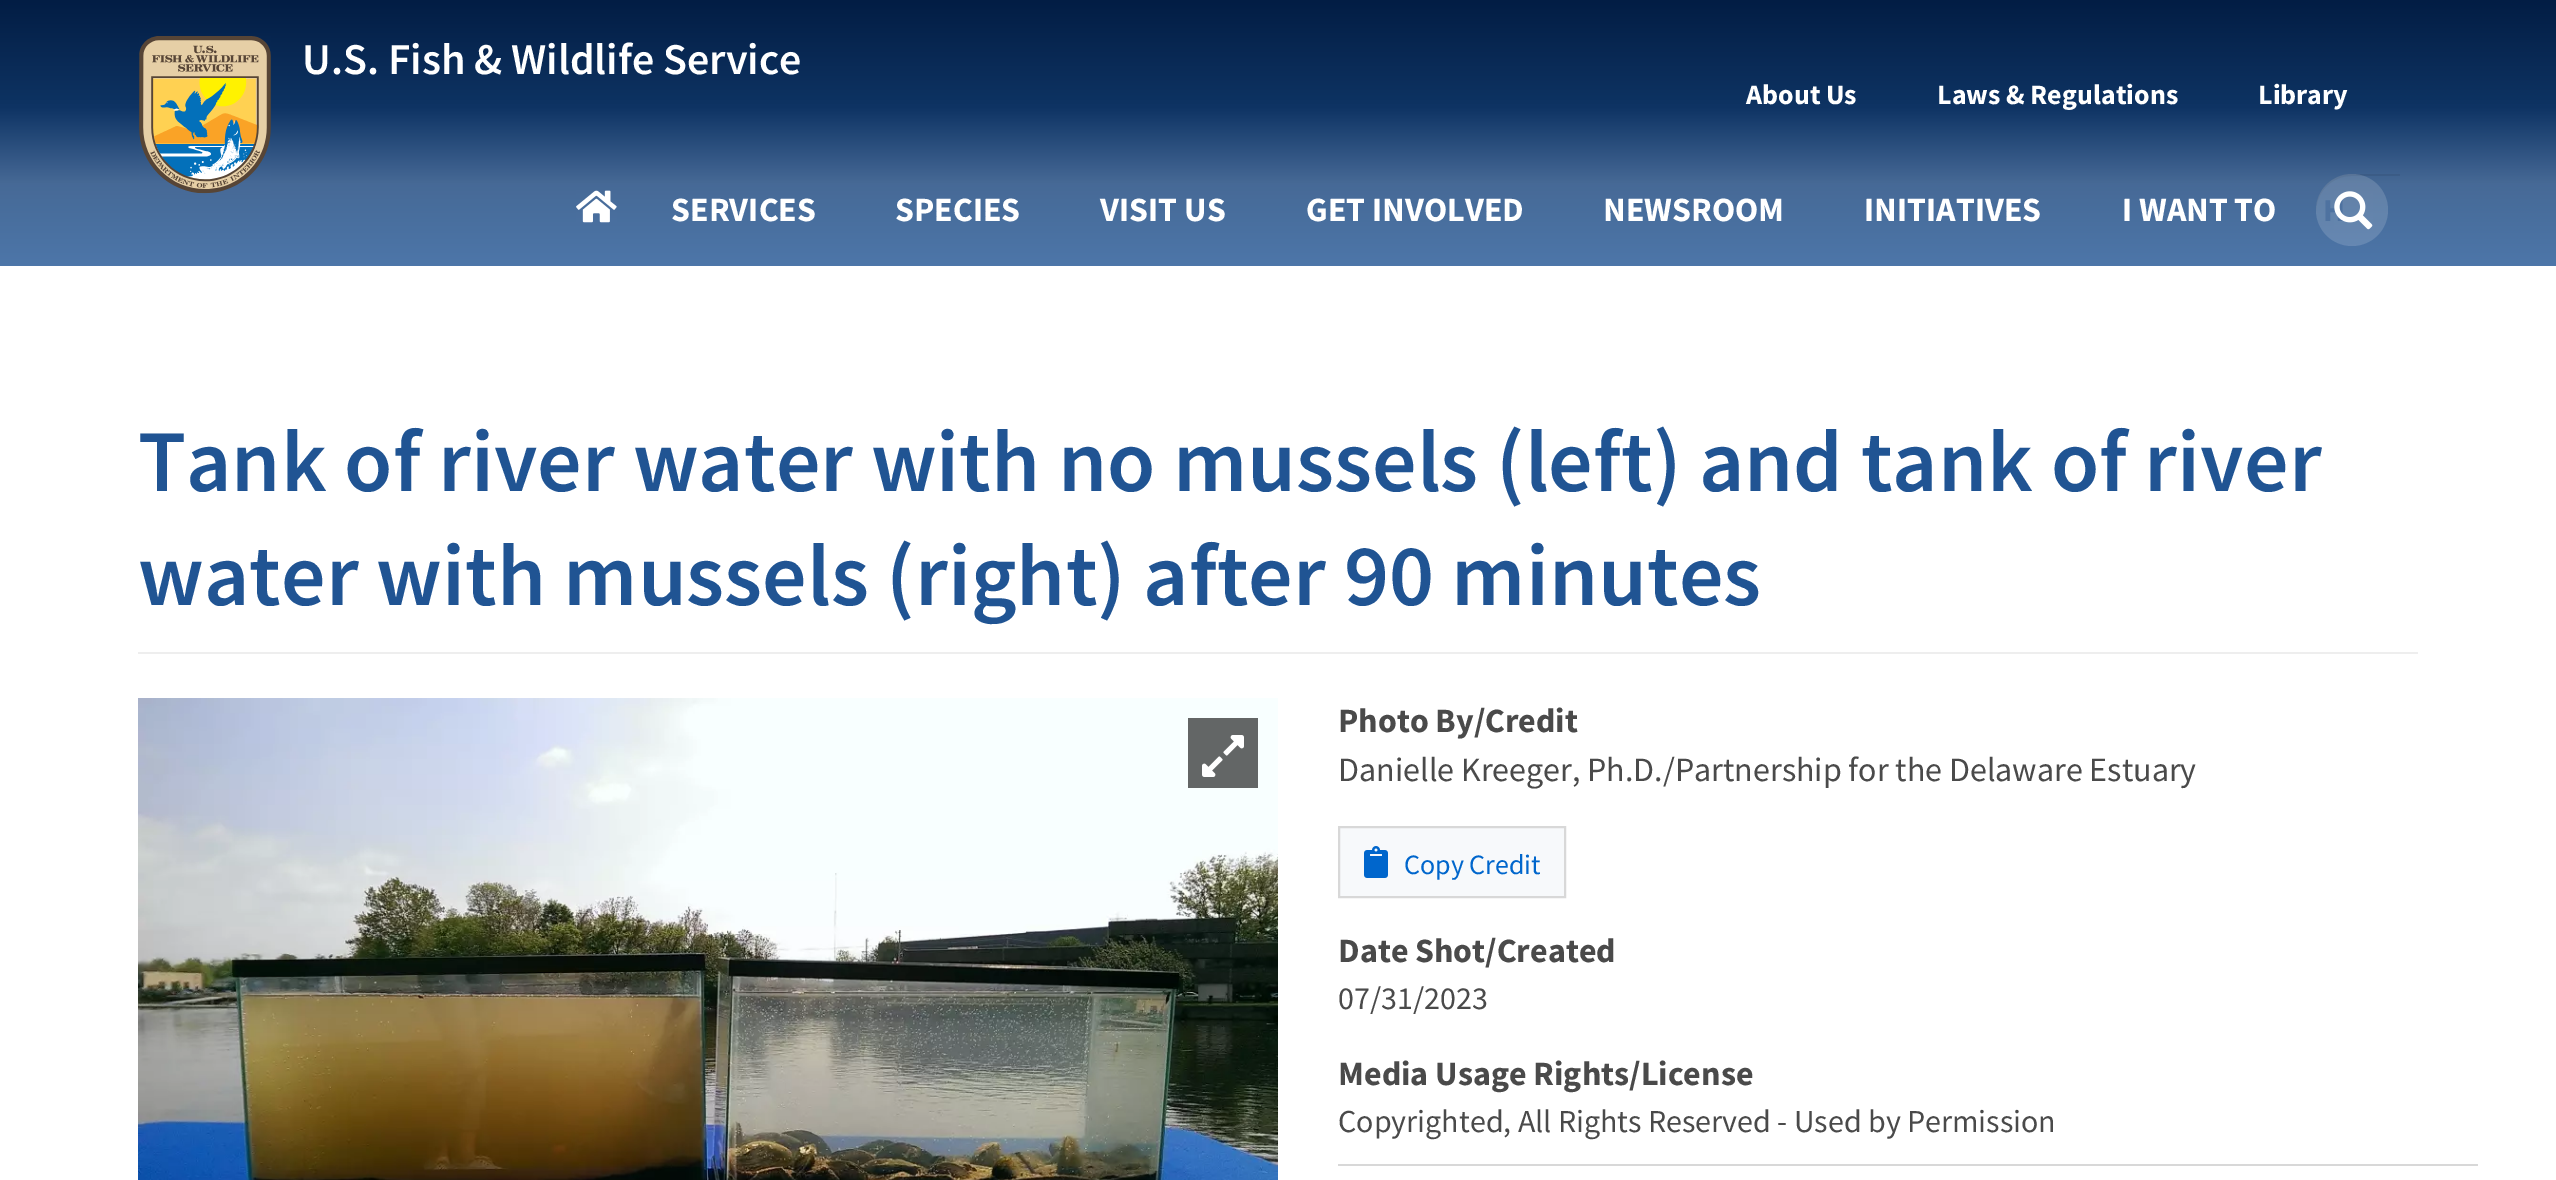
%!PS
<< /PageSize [2556 1180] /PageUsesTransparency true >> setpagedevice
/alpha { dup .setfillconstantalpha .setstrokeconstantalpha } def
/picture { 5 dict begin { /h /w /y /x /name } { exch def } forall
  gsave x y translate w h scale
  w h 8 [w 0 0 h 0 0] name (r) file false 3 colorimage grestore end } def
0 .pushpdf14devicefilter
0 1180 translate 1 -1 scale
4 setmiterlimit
1 setgray
0 0 2556 1180 rectfill
gsave newpath 0 0 moveto 2556 0 lineto 2556 266 lineto 0 266 lineto closepath clip newpath
<< /ShadingType 2 /ColorSpace /DeviceRGB /Coords [1278 0 1278 266] /Extend [true true] /Function << /FunctionType 3 /Domain [0 1] /Functions [<< /FunctionType 2 /Domain [0 1] /C0 [0.008 0.114 0.267] /C1 [0.055 0.2 0.388] /N 1 >> << /FunctionType 2 /Domain [0 1] /C0 [0.055 0.2 0.388] /C1 [0.275 0.412 0.588] /N 1 >> << /FunctionType 2 /Domain [0 1] /C0 [0.275 0.412 0.588] /C1 [0.302 0.463 0.663] /N 1 >>] /Bounds [0.4 0.69] /Encode [0 1 0 1 0 1] >> >> shfill grestore
(img1.rgb) 139 36 132 158 picture
/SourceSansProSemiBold-SemiBold [44 0 0 -44 0 0] selectfont
302 74 moveto (U.S. Fish & Wildlife Service) show
/SourceSansPro-Bold [28 0 0 -28 0 0] selectfont
1746 104 moveto (About Us) show
1937 104 moveto (Laws & Regulations) show
2258 104 moveto (Library) show
(img2.rgb) 576 190 41 33 picture
/SourceSansPro-Bold [34 0 0 -34 0 0] selectfont
671 221 moveto (SERVICES) show
895 221 moveto (SPECIES) show
1100 221 moveto (VISIT US) show
1306 221 moveto (GET INVOLVED) show
1603 221 moveto (NEWSROOM) show
1864 221 moveto (INITIATIVES) show
2122 221 moveto (I WANT TO) show
0.07 alpha
0 setgray
newpath 2352 176 moveto 2400 176 lineto 2400 174 lineto 2352 174 lineto 2332 174 2316 190 2316 210 curveto 2316 211 lineto 2317 191 2332 176 2352 176 curveto closepath fill
0.15 alpha
1 setgray
newpath 2352 210 36 0 360 arc closepath fill
/SourceSansPro-Bold [32 0 0 -32 0 0] selectfont
1 alpha
0.306 0.447 0.627 setrgbcolor
2323 221 moveto 1 0 (H) ashow
(img3.rgb) 2334 191 39 39 picture
0.933 setgray
138 652 2280 2 rectfill
/SourceSansProSemiBold-SemiBold [88 0 0 -88 0 0] selectfont
0.125 0.329 0.576 setrgbcolor
138 491 moveto (Tank of river water with no mussels \(left\) and tank of river) show
138 605 moveto (water with mussels \(right\) after 90 minutes) show
(img4.rgb) 138 698 1140 482 picture
0.388 0.4 0.4 setrgbcolor
1188 718 70 70 rectfill
(img5.rgb) 1202 735 42 42 picture
/SourceSansPro-Bold [34 0 0 -34 0 0] selectfont
0.29 setgray
1338 732 moveto (Photo By/Credit) show
/SourceSansPro-Regular [34 0 0 -34 0 0] selectfont
1338 781 moveto (Danielle Kreeger, Ph.D./Partnership for the Delaware Estuary) show
0.969 0.976 0.984 setrgbcolor
newpath 1339 827 moveto 1565 827 lineto 1565 897 lineto 1339 897 lineto closepath gsave fill grestore
0.847 setgray
2 setlinewidth
stroke
(img6.rgb) 1364 846 24 32 picture
/SourceSansPro-Regular [28 0 0 -28 0 0] selectfont
0 0.4 0.8 setrgbcolor
1404 874 moveto (Copy Credit) show
/SourceSansPro-Bold [34 0 0 -34 0 0] selectfont
0.29 setgray
1338 962 moveto (Date Shot/Created) show
/SourceSansPro-Regular [32 0 0 -32 0 0] selectfont
1338 1009 moveto (07/31/2023) show
0.847 setgray
1338 1164 1140 2 rectfill
/SourceSansPro-Bold [34 0 0 -34 0 0] selectfont
0.29 setgray
1338 1085 moveto (Media Usage Rights/License) show
/SourceSansPro-Regular [32 0 0 -32 0 0] selectfont
1338 1132 moveto (Copyrighted, All Rights Reserved - Used by Permission) show
.poppdf14devicefilter showpage
